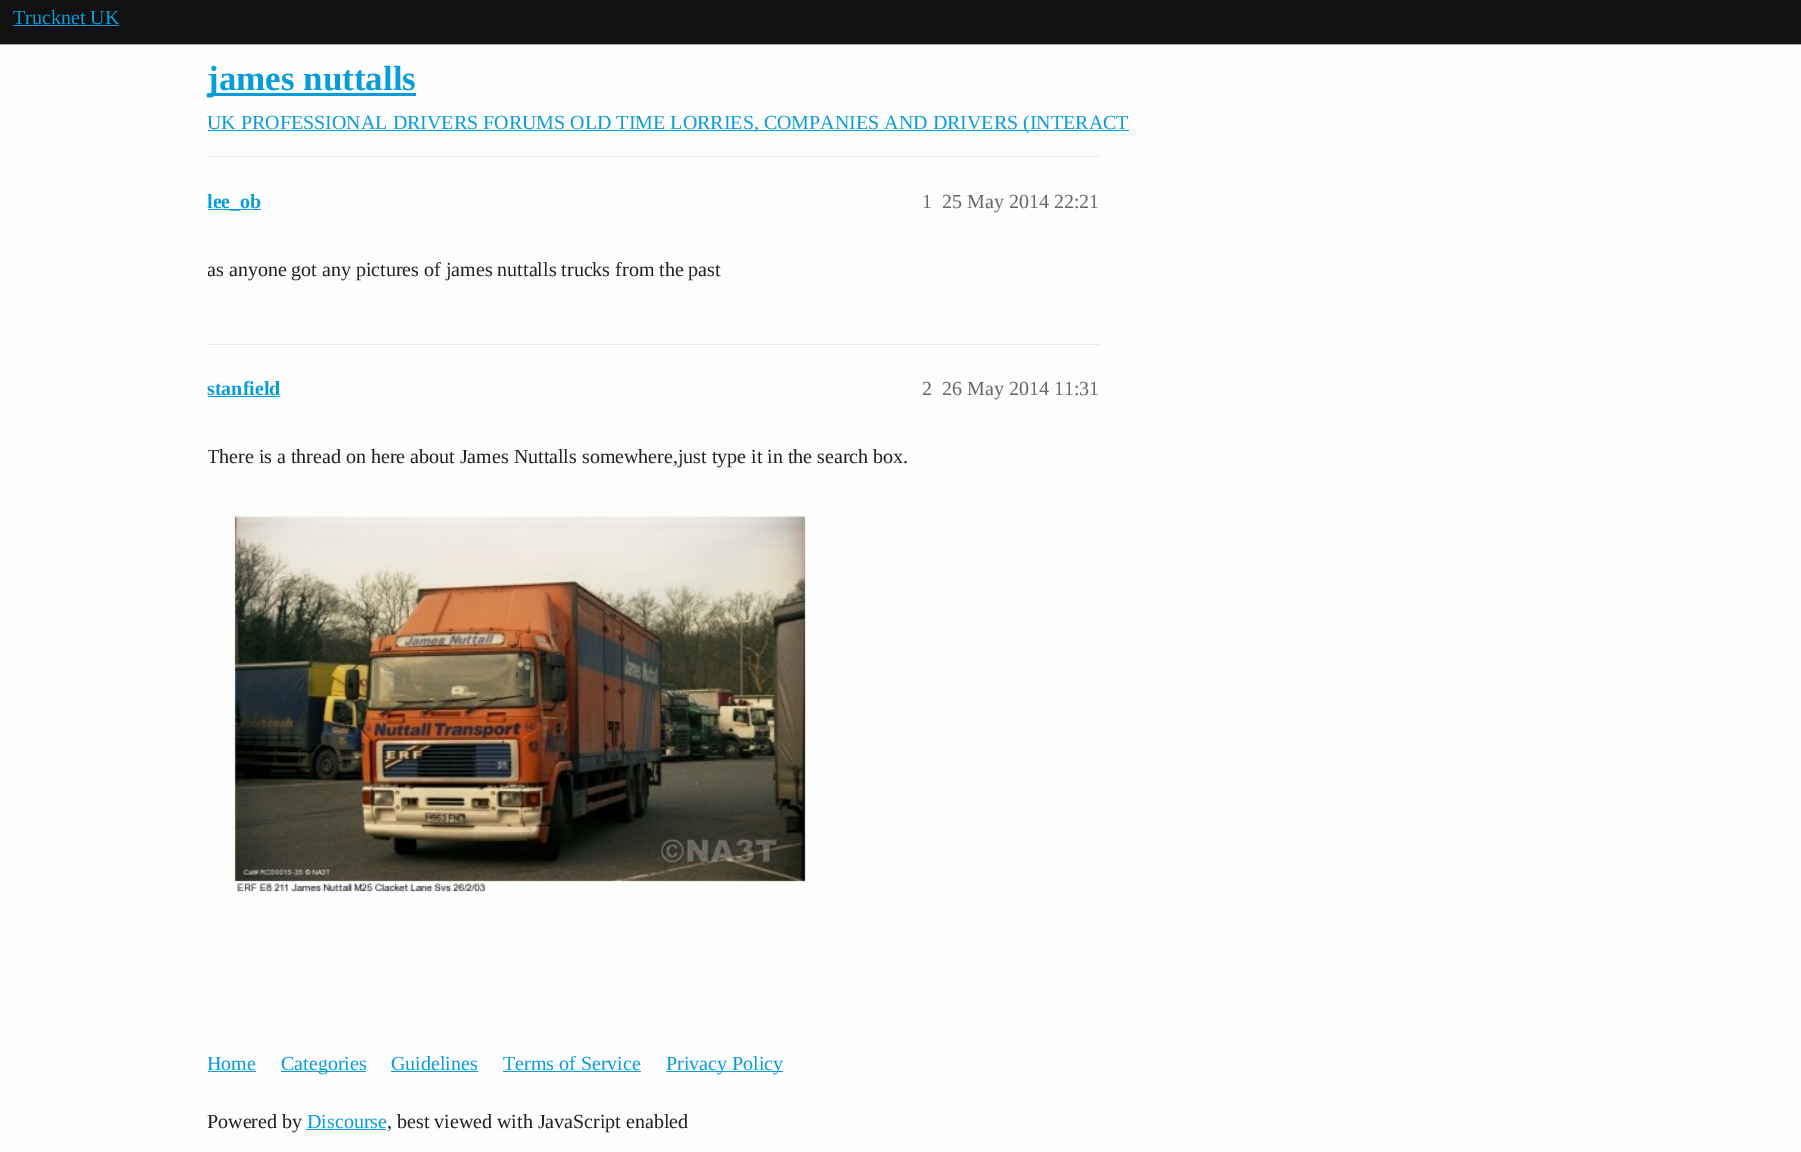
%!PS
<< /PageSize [1801 1152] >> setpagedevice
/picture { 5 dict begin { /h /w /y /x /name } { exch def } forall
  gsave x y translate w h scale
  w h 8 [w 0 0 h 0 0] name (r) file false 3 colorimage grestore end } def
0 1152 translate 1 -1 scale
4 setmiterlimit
0.992 setgray
0 0 1801 1152 rectfill
0.067 setgray
0 0 1801 44 rectfill
0.671 0.663 0.671 setrgbcolor
0 44 1801 1 rectfill
/LiberationSerif-Regular [20 0 0 -20 0 0] selectfont
0.035 0.616 0.843 setrgbcolor
13 24 moveto (Trucknet UK) show
13 25 106 1 rectfill
208 93 208 3 rectfill
/LiberationSerif-Bold [35 0 0 -35 0 0] selectfont
207 90 moveto (james nuttalls) show
208 130 921 1 rectfill
/LiberationSerif-Regular [20 0 0 -20 0 0] selectfont
207 129 moveto (UK PROFESSIONAL DRIVERS FORUMS OLD TIME LORRIES, COMPANIES AND DRIVERS \(INTERACT) show
0.914 setgray
208 156 892 1 rectfill
0.035 0.616 0.843 setrgbcolor
208 209 53 1 rectfill
/LiberationSerif-Bold [20 0 0 -20 0 0] selectfont
207 208 moveto (lee_ob) show
/LiberationSerif-Regular [20 0 0 -20 0 0] selectfont
0.4 setgray
922 208 moveto (1) show
942 208 moveto (25 May 2014 22:21) show
gsave
208 236 892 68 rectclip
0.133 setgray
207 276 moveto (as anyone got any pictures of james nuttalls trucks from the past) show
grestore
0.914 setgray
208 344 892 1 rectfill
/LiberationSerif-Bold [20 0 0 -20 0 0] selectfont
0.035 0.616 0.843 setrgbcolor
207 395 moveto (stanfield) show
208 396 72 1 rectfill
/LiberationSerif-Regular [20 0 0 -20 0 0] selectfont
0.4 setgray
922 395 moveto (2) show
942 395 moveto (26 May 2014 11:31) show
gsave
208 424 892 504 rectclip
0.133 setgray
207 463 moveto (There is a thread on here about James Nuttalls somewhere,just type it in the search box.) show
grestore
(img1.rgb) 229 511 578 381 picture
0.035 0.616 0.843 setrgbcolor
207 1070 moveto (Home) show
208 1071 48 1 rectfill
281 1071 85 1 rectfill
281 1070 moveto (Categories) show
391 1070 moveto (Guidelines) show
391 1071 87 1 rectfill
503 1070 moveto (Terms of Service) show
503 1071 138 1 rectfill
666 1071 117 1 rectfill
666 1070 moveto (Privacy Policy) show
0.133 setgray
207 1128 moveto (Powered by) show
0.035 0.616 0.843 setrgbcolor
307 1128 moveto (Discourse) show
306 1129 80 1 rectfill
0.133 setgray
387 1128 moveto (, best viewed with JavaScript enabled) show
showpage
